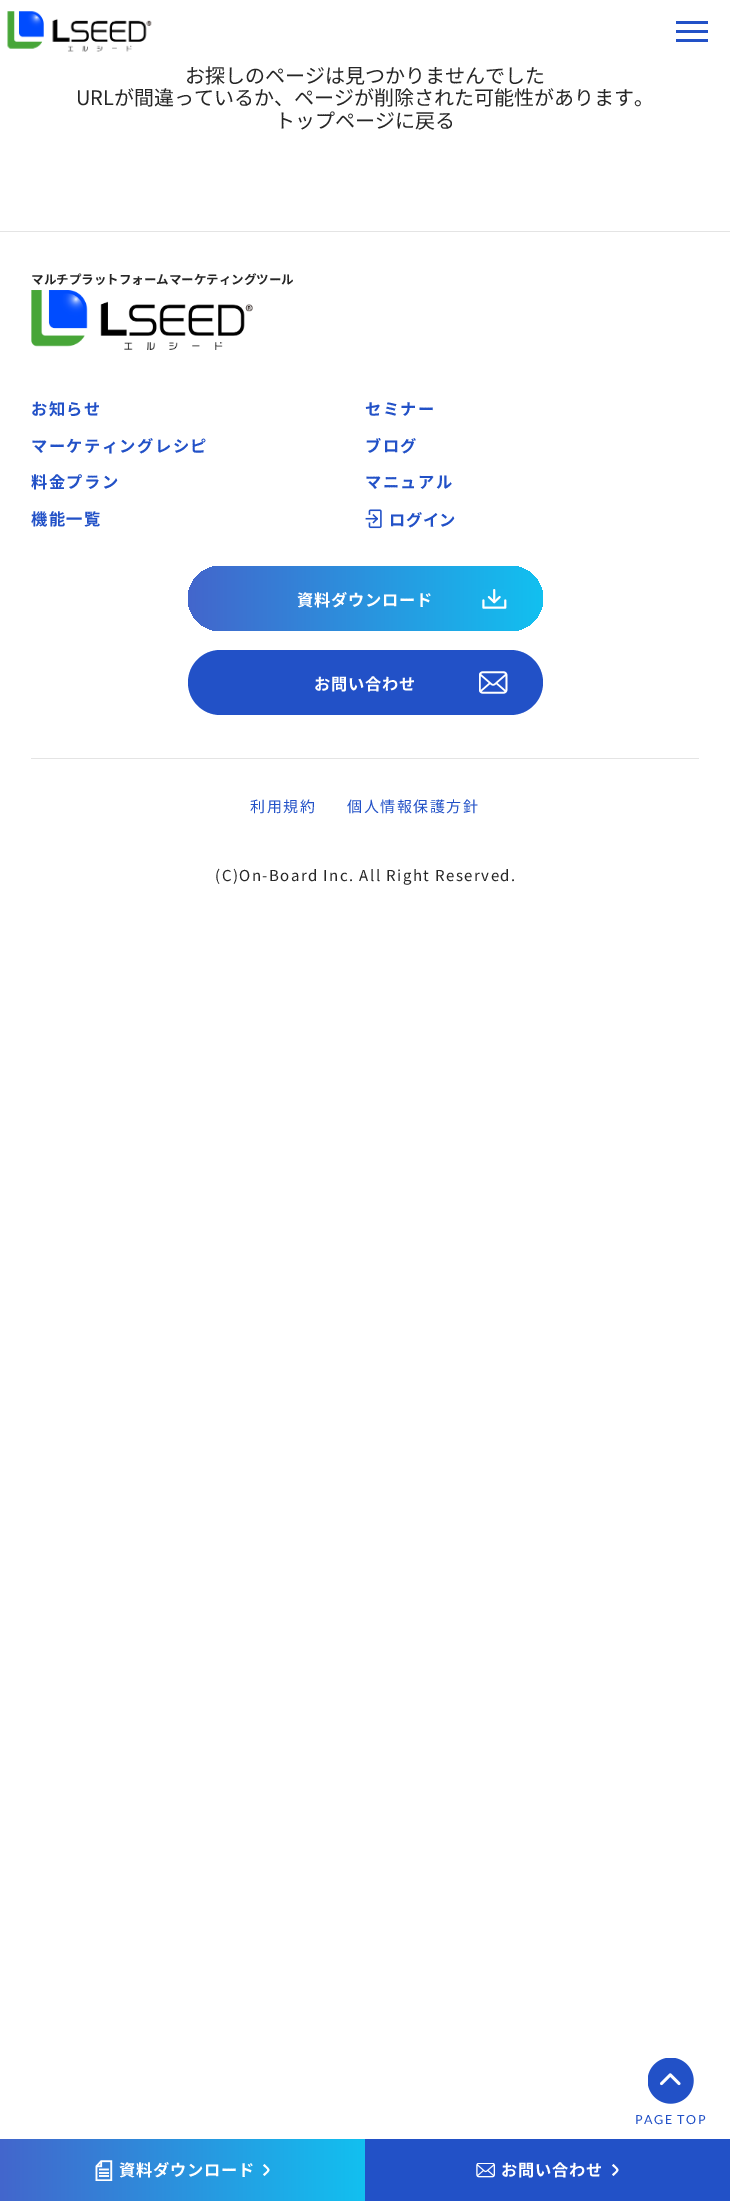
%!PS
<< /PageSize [730 2201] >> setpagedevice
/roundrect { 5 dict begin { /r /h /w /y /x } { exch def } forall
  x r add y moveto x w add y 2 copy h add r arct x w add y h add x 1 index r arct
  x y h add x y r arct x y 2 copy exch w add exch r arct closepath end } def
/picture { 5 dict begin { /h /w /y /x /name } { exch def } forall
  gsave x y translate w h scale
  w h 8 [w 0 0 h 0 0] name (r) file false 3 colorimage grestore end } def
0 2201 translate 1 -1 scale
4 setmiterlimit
1 setgray
0 0 730 2201 rectfill
(img1.rgb) 7 11 145 41 picture
0.133 0.318 0.78 setrgbcolor
676 21 32 3 rectfill
676 30 32 3 rectfill
676 39 32 3 rectfill
/NotoSansJP-Regular [20 0 0 -20 0 0] selectfont
0.149 setgray
185 83 moveto (お探しのページは見つかりませんでした) show
76 105 moveto (URLが間違っているか、ページが削除された可能性があります。) show
275 128 moveto (トップページに戻る) show
0.894 setgray
0 231 730 1 rectfill
/NotoSansJP-Bold [12.5 0 0 -12.5 0 0] selectfont
0.149 setgray
31 284 moveto (マルチプラットフォームマーケティングツール) show
(img2.rgb) 31 290 222 60 picture
/NotoSansJP-Bold [16.25 0 0 -16.25 0 0] selectfont
0.133 0.318 0.78 setrgbcolor
31 415 moveto 1.45 0 (お知らせ) ashow
365 415 moveto 1.45 0 (セミナー) ashow
31 452 moveto 1.45 0 (マーケティングレシピ) ashow
365 452 moveto 1.45 0 (ブログ) ashow
31 488 moveto 1.45 0 (料金プラン) ashow
365 488 moveto 1.45 0 (マニュアル) ashow
31 525 moveto 1.45 0 (機能一覧) ashow
(img3.rgb) 365 509 17 20 picture
389 526 moveto 0.5 0 (ログイン) ashow
gsave 188 566 355 65 32.5 roundrect clip newpath
<< /ShadingType 2 /ColorSpace /DeviceRGB /Coords [188 599 543 599] /Extend [true true] /Function << /FunctionType 2 /Domain [0 1] /C0 [0.263 0.4 0.8] /C1 [0.071 0.753 0.941] /N 1 >> >> shfill grestore
1 setgray
297 606 moveto 0.75 0 (資料ダウンロード) ashow
(img4.rgb) 482 589 25 20 picture
0.133 0.318 0.78 setrgbcolor
188 650 355 65 32.5 roundrect fill
1 setgray
314 690 moveto 0.75 0 (お問い合わせ) ashow
(img5.rgb) 479 671 29 23 picture
0.894 setgray
31 758 668 1 rectfill
/NotoSansJP-Regular [15 0 0 -15 0 0] selectfont
0.133 0.318 0.78 setrgbcolor
250 812 moveto 1.5 0 (利用規約) ashow
347 812 moveto 1.5 0 (個人情報保護方針) ashow
0.149 setgray
215 881 moveto 1.45 0 (\(C\)On-Board Inc. All Right Reserved.) ashow
(img6.rgb) 648 2058 46 46 picture
/Lato-Regular [12.5 0 0 -12.5 0 0] selectfont
0.133 0.318 0.78 setrgbcolor
635 2124 moveto 1.5 0 (PAGE TOP) ashow
gsave newpath 0 2139 moveto 365 2139 lineto 365 2201 lineto 0 2201 lineto closepath clip newpath
<< /ShadingType 2 /ColorSpace /DeviceRGB /Coords [0 2170 365 2170] /Extend [true true] /Function << /FunctionType 2 /Domain [0 1] /C0 [0.263 0.4 0.8] /C1 [0.071 0.753 0.941] /N 1 >> >> shfill grestore
(img7.rgb) 95 2160 18 21 picture
/NotoSansJP-Bold [16.25 0 0 -16.25 0 0] selectfont
1 setgray
119 2176 moveto 0.75 0 (資料ダウンロード) ashow
1.8 setlinewidth
2 setlinecap
1 setlinejoin
newpath 264.5 2165.5 moveto 270 2171 270 2169 264.5 2174.5 curveto stroke
0.133 0.318 0.78 setrgbcolor
365 2139 365 62 rectfill
(img8.rgb) 476 2163 19 15 picture
1 setgray
501 2176 moveto 0.75 0 (お問い合わせ) ashow
newpath 613.5 2165.5 moveto 619 2171 619 2169 613.5 2174.5 curveto stroke
showpage
